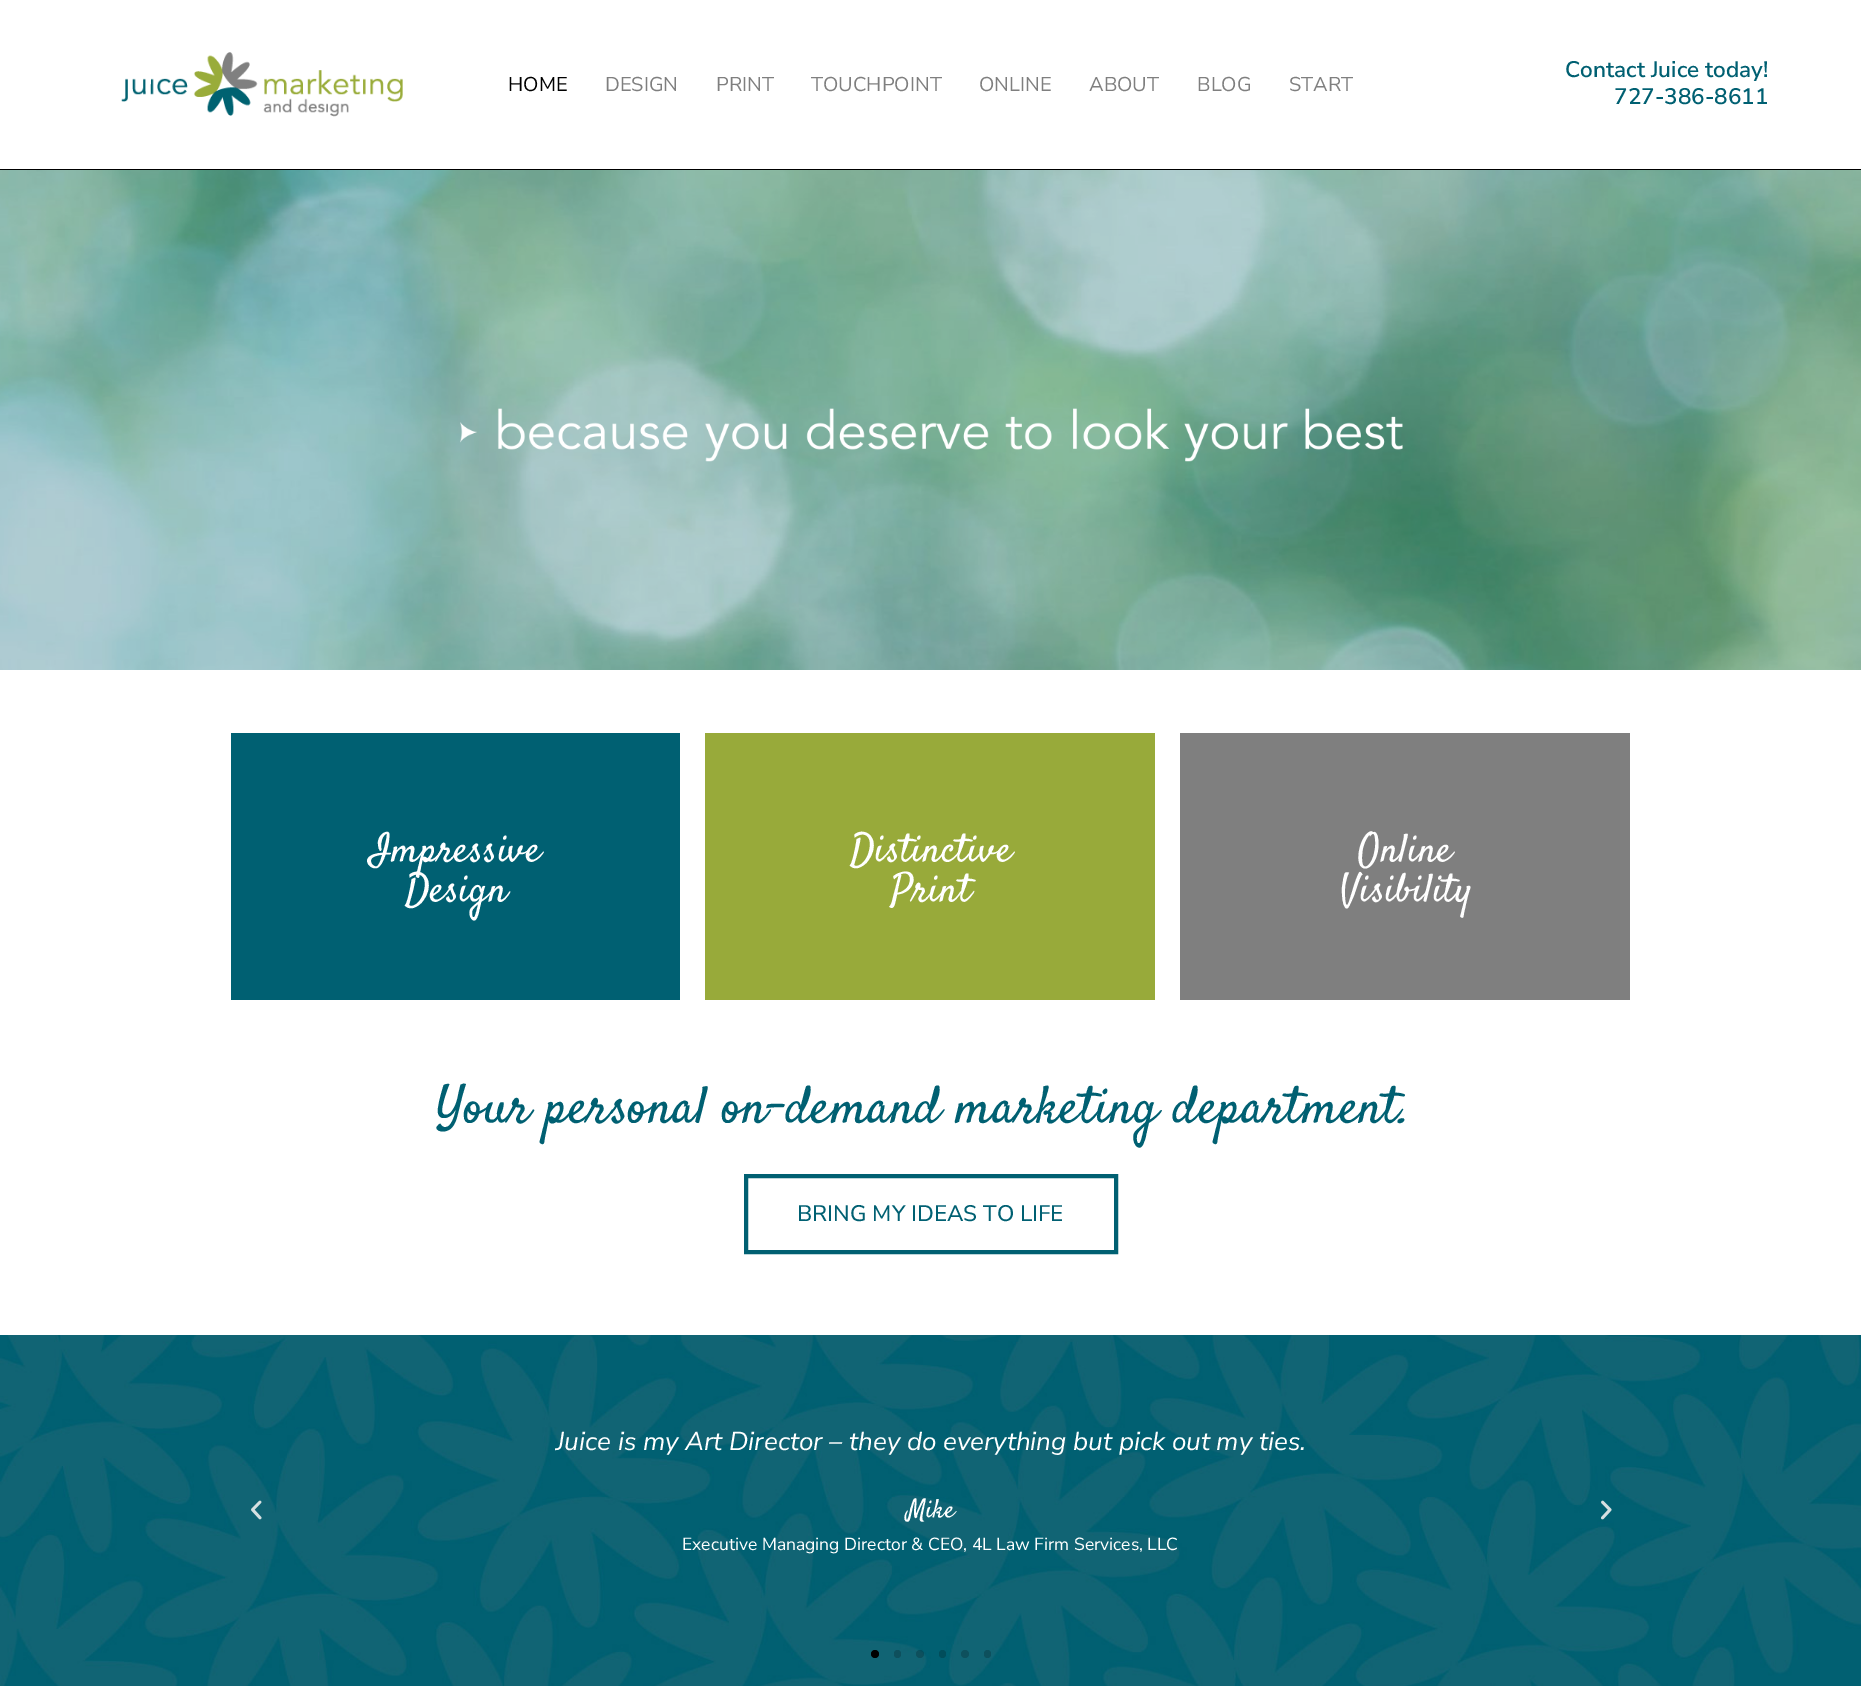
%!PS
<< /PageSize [1861 1686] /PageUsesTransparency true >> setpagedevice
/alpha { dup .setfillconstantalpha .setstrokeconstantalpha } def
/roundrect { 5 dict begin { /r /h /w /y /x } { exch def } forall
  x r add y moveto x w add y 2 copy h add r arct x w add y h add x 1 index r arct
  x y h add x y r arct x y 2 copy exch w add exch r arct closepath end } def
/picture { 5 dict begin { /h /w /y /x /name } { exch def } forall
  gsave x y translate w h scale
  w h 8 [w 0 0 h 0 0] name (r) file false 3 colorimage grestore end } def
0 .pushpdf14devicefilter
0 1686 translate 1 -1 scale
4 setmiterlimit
1 setgray
0 0 1861 1686 rectfill
0 setgray
0 169 1861 1 rectfill
(img1.rgb) 121 52 282 65 picture
/NunitoSans-Regular [20 0 0 -20 0 0] selectfont
508 91 moveto (HOME) show
0.498 setgray
605 91 moveto (DESIGN) show
716 91 moveto (PRINT) show
811 91 moveto (TOUCHPOINT) show
979 91 moveto (ONLINE) show
1089 91 moveto (ABOUT) show
1197 91 moveto (BLOG) show
1289 91 moveto (START) show
/NunitoSans-SemiBold [22.5 0 0 -22.5 0 0] selectfont
0 0.376 0.447 setrgbcolor
1565 77 moveto (Contact Juice today!) show
1614 104 moveto (727-386-8611) show
(img2.rgb) 0 170 1861 500 picture
(img3.rgb) 460 408 943 54 picture
231 733 449 267 rectfill
/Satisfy-Regular [40 0 0 -40 0 0] selectfont
1 setgray
370 861 moveto (Impressive) show
405 901 moveto (Design) show
0.596 0.667 0.227 setrgbcolor
705 733 450 267 rectfill
1 setgray
850 861 moveto (Distinctive) show
891 901 moveto (Print) show
0.498 setgray
1180 733 450 267 rectfill
1 setgray
1358 861 moveto (Online) show
1340 901 moveto (Visibility) show
/Satisfy-Regular [52.5 0 0 -52.5 0 0] selectfont
0 0.376 0.447 setrgbcolor
436 1122 moveto (Your personal on-demand marketing department.) show
4 setlinewidth
746 1176 370 76 rectstroke
/NunitoSans-Medium [22.5 0 0 -22.5 0 0] selectfont
797 1221 moveto (BRING MY IDEAS TO LIFE) show
(img4.rgb) 0 1335 1861 351 picture
(img5.rgb) 251 1500 11 20 picture
/NunitoSans-Italic [26 0 0 -26 0 0] selectfont
1 setgray
556 1450 moveto (Juice is my Art Director – they do everything but pick out my ties.) show
/Satisfy-Regular [26 0 0 -26 0 0] selectfont
907 1517 moveto (Mike) show
/NunitoSans-Regular [17.5 0 0 -17.5 0 0] selectfont
682 1550 moveto (Executive Managing Director & CEO, 4L Law Firm Services, LLC) show
(img6.rgb) 1601 1500 11 20 picture
0 setgray
newpath 875 1654 4 0 360 arc closepath fill
0.055 0.314 0.365 setrgbcolor
894 1650 7 8 3.5 roundrect fill
0.2 alpha
0 setgray
newpath 920 1654 4 0 360 arc closepath fill
1 alpha
0.004 0.302 0.357 setrgbcolor
939 1650 7 8 3.5 roundrect fill
0.055 0.314 0.365 setrgbcolor
newpath 965 1654 4 0 360 arc closepath fill
0.051 0.314 0.365 setrgbcolor
984 1650 7 8 3.5 roundrect fill
.poppdf14devicefilter showpage
